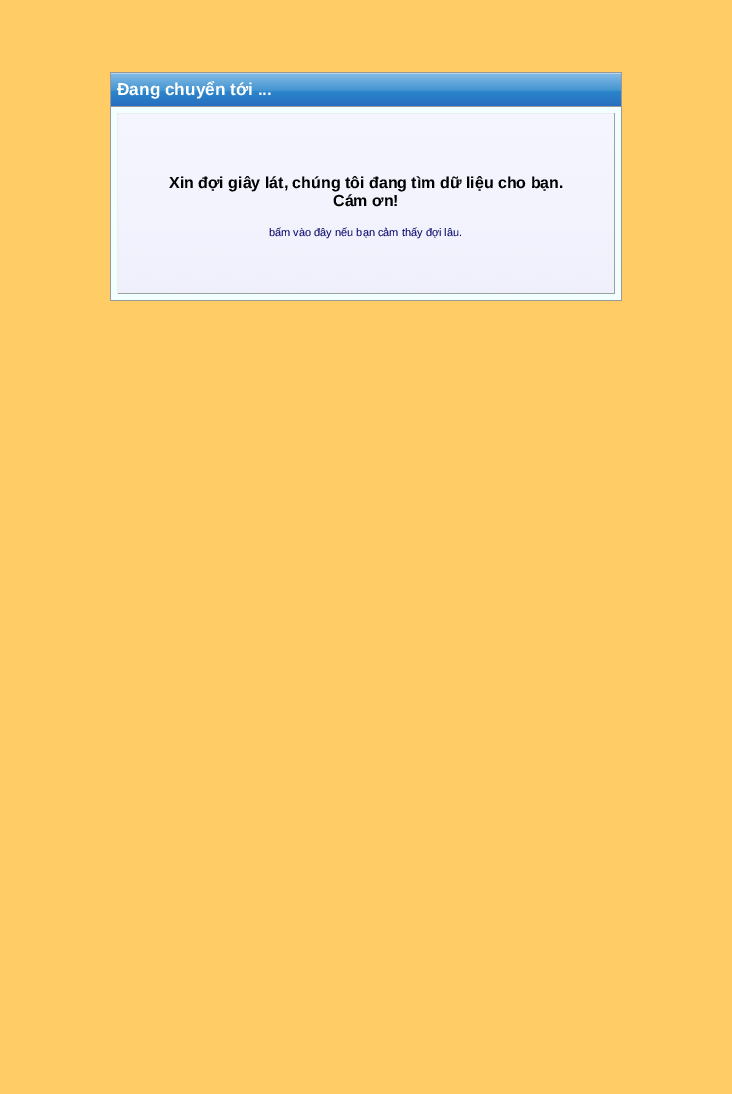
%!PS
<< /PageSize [732 1094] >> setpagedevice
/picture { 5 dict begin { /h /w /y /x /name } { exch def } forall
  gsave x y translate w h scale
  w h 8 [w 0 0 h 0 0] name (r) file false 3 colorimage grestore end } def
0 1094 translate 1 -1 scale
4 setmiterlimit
1 0.8 0.4 setrgbcolor
0 0 732 1094 rectfill
0.6 setgray
110 72 512 229 rectfill
(img1.rgb) 111 73 510 33 picture
/LiberationSans-Bold [17.25 0 0 -17.25 0 0] selectfont
1 setgray
117 95 moveto (Ðang chuyển tới ...) show
0.945 1 1 setrgbcolor
111 107 510 193 rectfill
(img2.rgb) 118 114 496 179 picture
0.933 setgray
117 113 498 1 rectfill
0.624 setgray
614 113 1 181 rectfill
117 293 498 1 rectfill
0.933 setgray
117 113 1 181 rectfill
/LiberationSans-Bold [16 0 0 -16 0 0] selectfont
0 setgray
169 188 moveto (Xin đợi giây lát, chúng tôi đang tìm dữ liệu cho bạn.) show
333 206 moveto (Cám ơn!) show
/LiberationSans-Regular [11 0 0 -11 0 0] selectfont
0 0 0.4 setrgbcolor
269 236 moveto (bấm vào đây nếu bạn cảm thấy đợi lâu.) show
showpage
